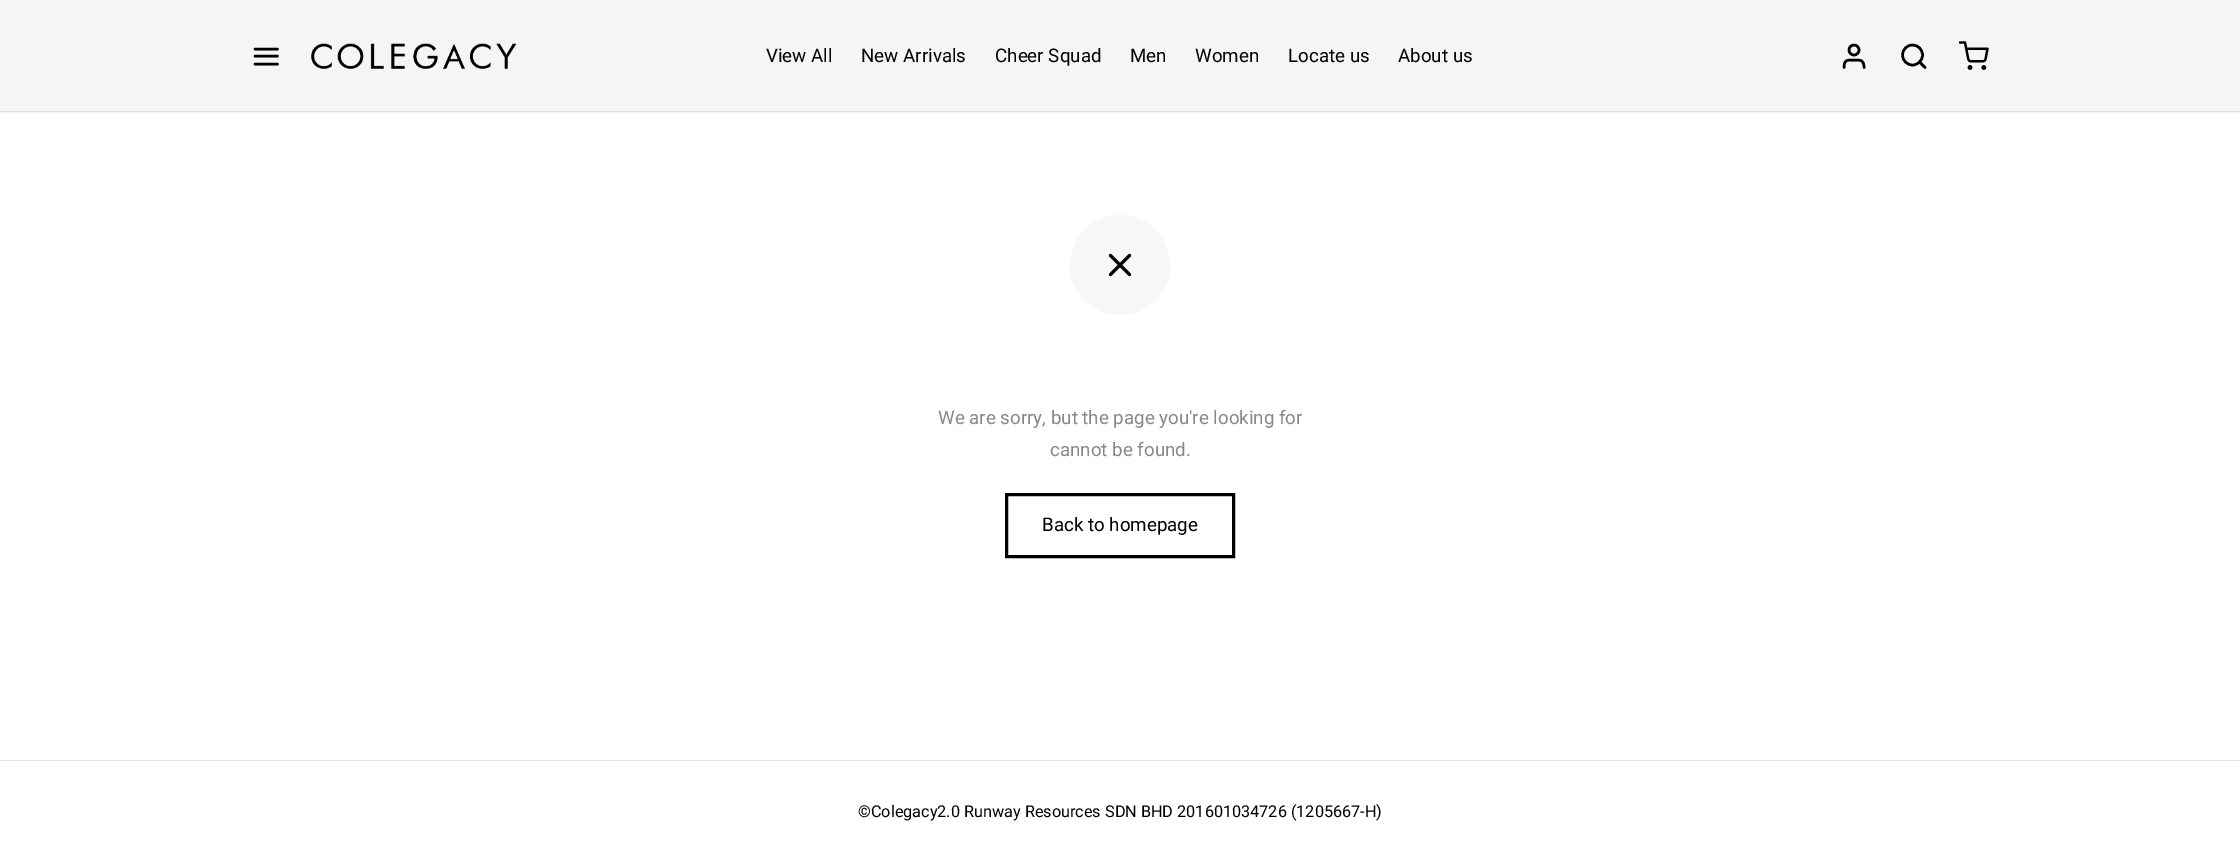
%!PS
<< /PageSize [2240 851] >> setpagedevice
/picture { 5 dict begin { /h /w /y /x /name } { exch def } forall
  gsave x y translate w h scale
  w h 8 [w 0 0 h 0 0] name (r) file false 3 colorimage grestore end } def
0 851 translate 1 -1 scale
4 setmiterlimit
1 setgray
0 0 2240 851 rectfill
0.961 setgray
0 0 2240 113 rectfill
0 setgray
2.5 setlinewidth
1 setlinecap
1 setlinejoin
newpath 255 56 moveto 277.5 56 lineto 255 49 moveto 277.5 49 lineto 255 64 moveto 277.5 64 lineto stroke
(img1.rgb) 311 43 206 26 picture
/Roboto-Regular [18.75 0 0 -18.75 0 0] selectfont
766 62 moveto (View All) show
861 62 moveto (New Arrivals) show
995 62 moveto (Cheer Squad) show
1130 62 moveto (Men) show
1195 62 moveto (Women) show
1288 62 moveto (Locate us) show
1398 62 moveto (About us) show
newpath 1864 67.5 moveto 1864 59.5 1860.5 60 1854 60 curveto 1847 60 1844 59.5 1844 67.5 curveto stroke
0 setlinecap
0 setlinejoin
newpath 1854 50 5 0 360 arc closepath stroke
newpath 1912.5 55 10 0 360 arc closepath stroke
1 setlinecap
1 setlinejoin
newpath 1925 67.5 moveto 1919.5 62 lineto stroke
(img2.rgb) 1959 41 30 29 picture
0.867 setgray
0 111 2240 1 rectfill
0.969 setgray
newpath 1120 265 50 0 360 arc closepath fill
0 setgray
3.1 setlinewidth
newpath 1129.5 255.5 moveto 1110.5 274.5 lineto 1110.5 255.5 moveto 1129.5 274.5 lineto stroke
0.533 setgray
938 424 moveto (We are sorry, but the page you're looking for) show
1050 456 moveto (cannot be found.) show
0 setgray
3 setlinewidth
0 setlinecap
0 setlinejoin
1006.5 494.5 227 62 rectstroke
1042 531 moveto (Back to homepage) show
0.902 setgray
0 760 2240 1 rectfill
/Roboto-Regular [16.25 0 0 -16.25 0 0] selectfont
0 setgray
858 817 moveto (©Colegacy2.0 Runway Resources SDN BHD 201601034726 \(1205667-H\)) show
showpage
